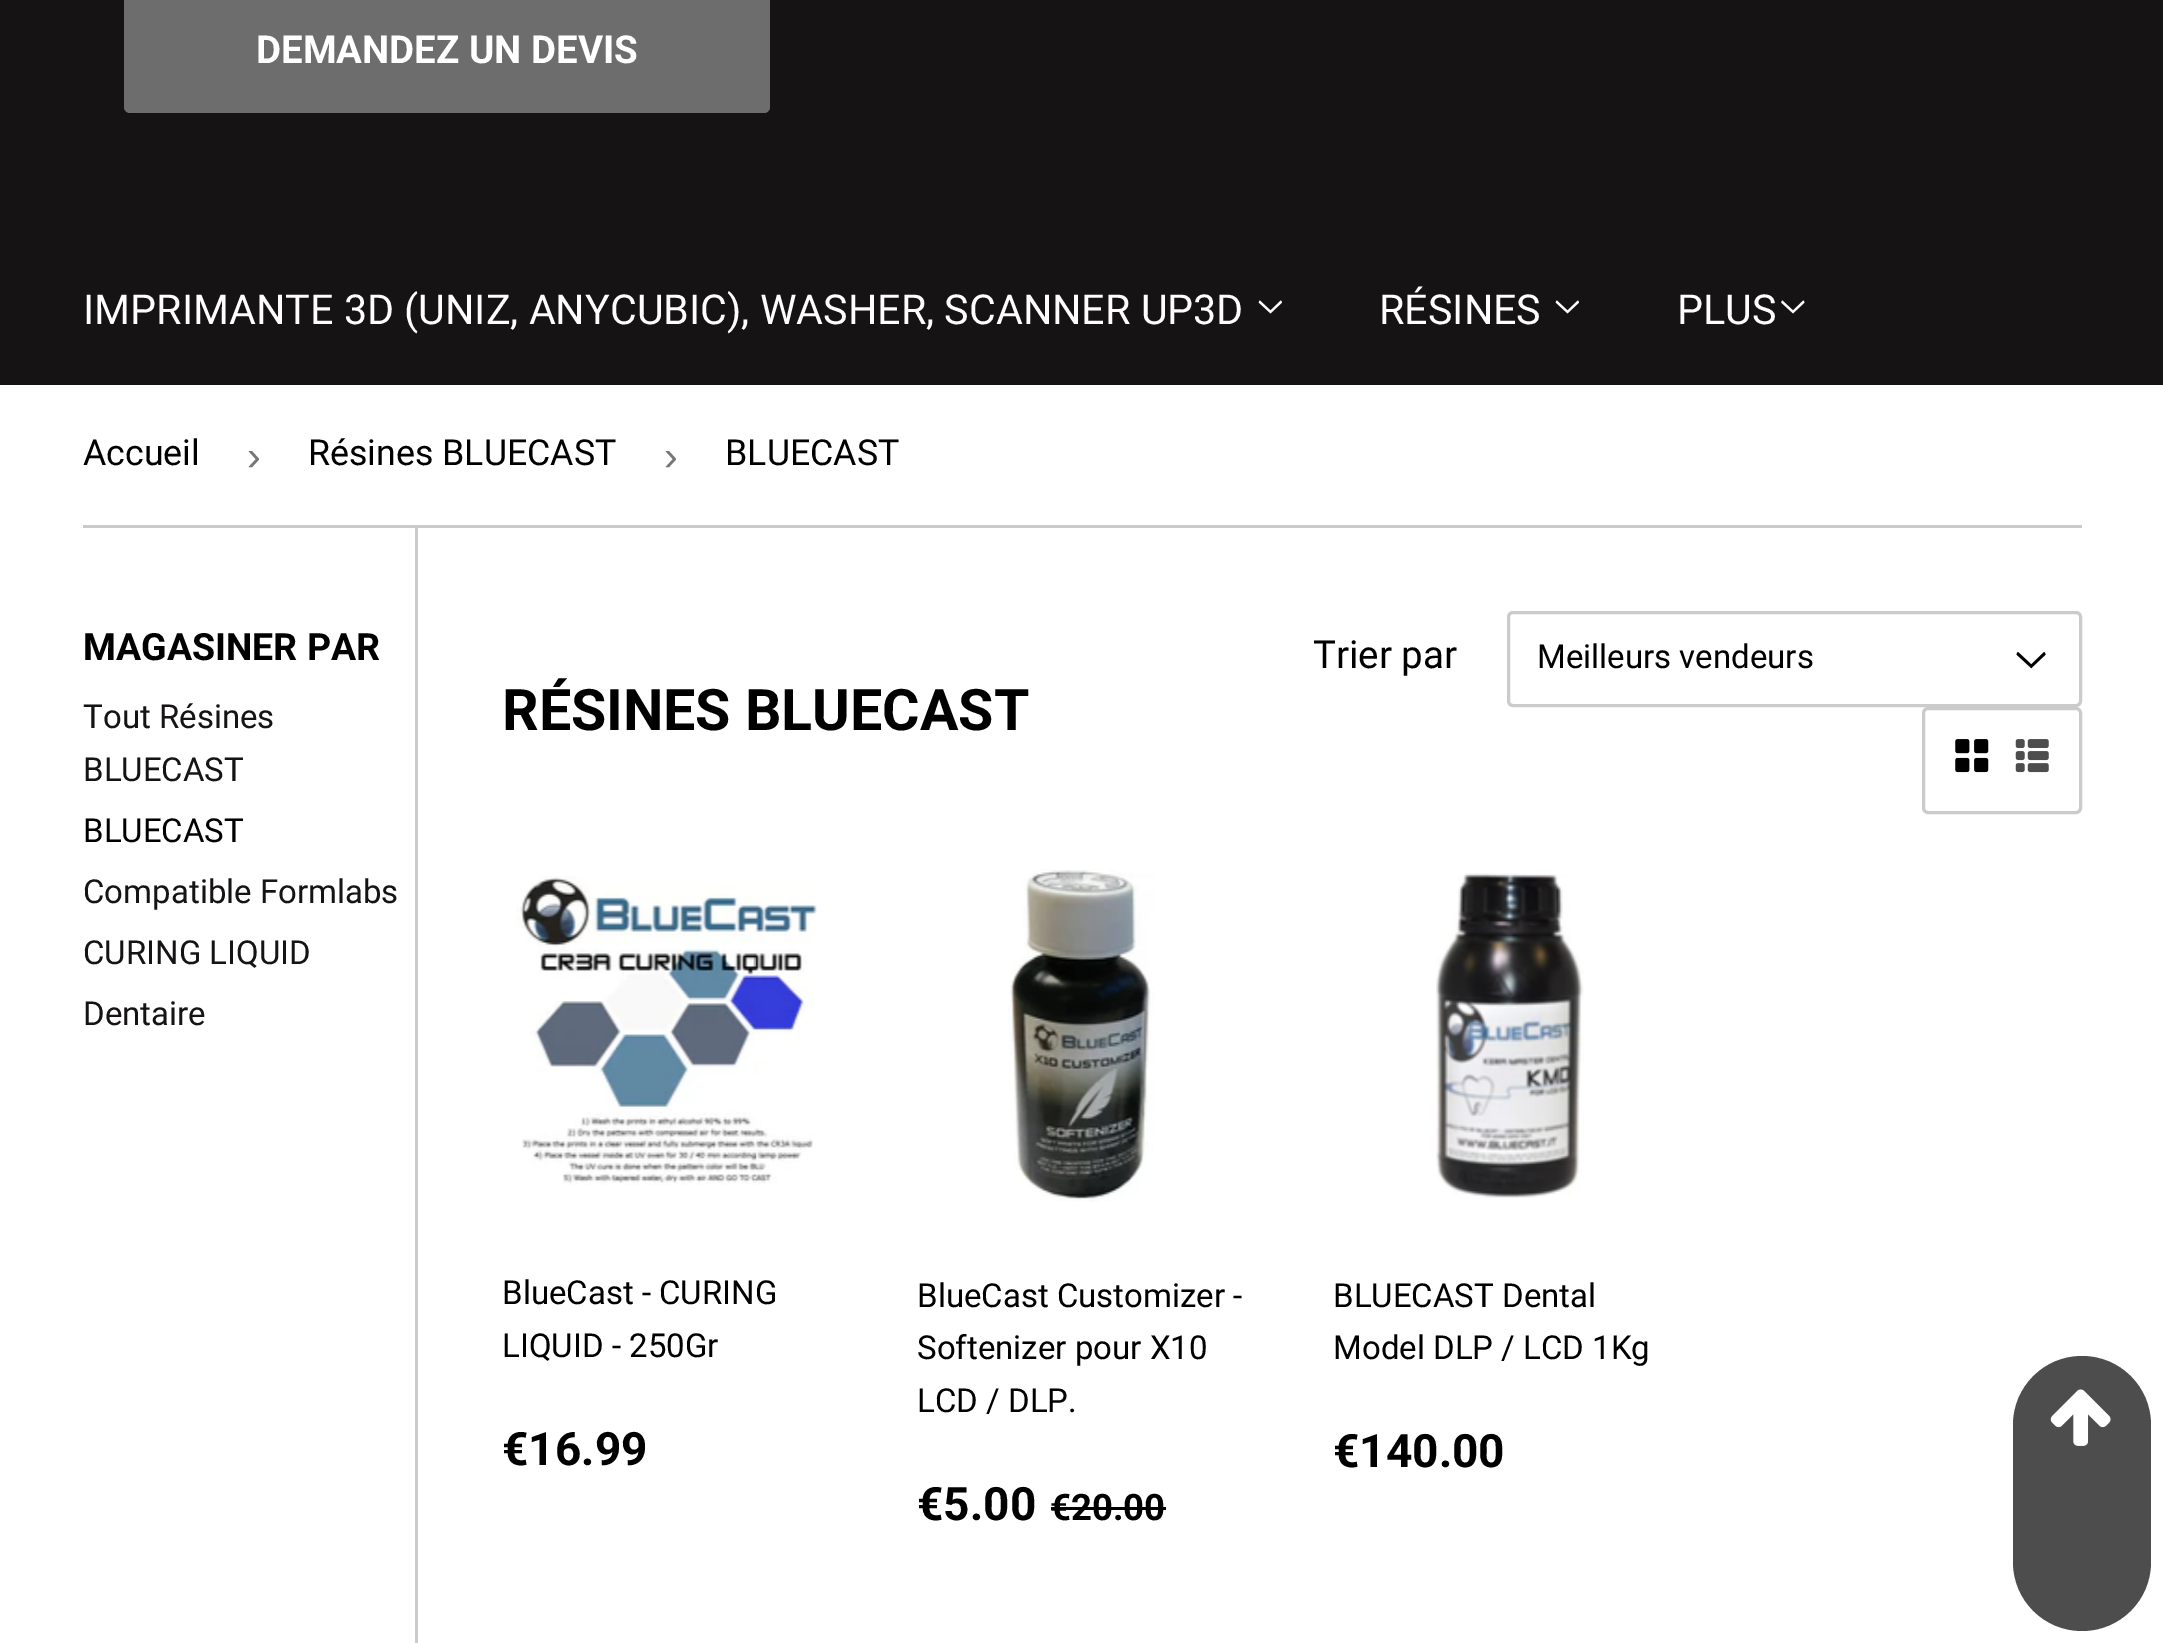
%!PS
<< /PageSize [2163 1643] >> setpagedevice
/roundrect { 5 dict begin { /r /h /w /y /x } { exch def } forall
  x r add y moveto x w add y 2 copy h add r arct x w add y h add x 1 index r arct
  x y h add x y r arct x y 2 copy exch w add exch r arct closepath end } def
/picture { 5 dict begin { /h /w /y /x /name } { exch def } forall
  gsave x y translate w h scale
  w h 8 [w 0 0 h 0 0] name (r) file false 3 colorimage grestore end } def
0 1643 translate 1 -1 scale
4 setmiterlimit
1 setgray
0 0 2163 1643 rectfill
0.082 0.075 0.075 setrgbcolor
0 0 2163 385 rectfill
0.427 setgray
124 -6 646 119 6 roundrect fill
/Roboto-Bold [38.5 0 0 -38.5 0 0] selectfont
1 setgray
256 63 moveto (DEMANDEZ UN DEVIS) show
/Roboto-Regular [41.25 0 0 -41.25 0 0] selectfont
83 324 moveto (IMPRIMANTE 3D \(UNIZ, ANYCUBIC\), WASHER, SCANNER UP3D) show
(img1.rgb) 1258 300 24 14 picture
1379 324 moveto (RÉSINES) show
(img1.rgb) 1555 300 24 14 picture
1677 324 moveto (PLUS) show
(img2.rgb) 1781 300 24 14 picture
0.796 setgray
83 525 1999 3 rectfill
/Roboto-Regular [35.75 0 0 -35.75 0 0] selectfont
0 setgray
83 465 moveto (Accueil) show
/LiberationSans-Regular [41.25 0 0 -41.25 0 0] selectfont
0.463 setgray
247 470 moveto (›) show
/Roboto-Regular [35.75 0 0 -35.75 0 0] selectfont
0 setgray
308 465 moveto (Résines BLUECAST) show
/LiberationSans-Regular [41.25 0 0 -41.25 0 0] selectfont
0.463 setgray
664 470 moveto (›) show
/Roboto-Regular [35.75 0 0 -35.75 0 0] selectfont
0 setgray
725 465 moveto (BLUECAST) show
/Roboto-Bold [37.5 0 0 -37.5 0 0] selectfont
83 660 moveto (MAGASINER PAR) show
/Roboto-Regular [33 0 0 -33 0 0] selectfont
0.082 0.075 0.075 setrgbcolor
83 728 moveto (Tout Résines) show
83 781 moveto (BLUECAST) show
0 setgray
83 842 moveto (BLUECAST) show
0.082 0.075 0.075 setrgbcolor
83 903 moveto (Compatible Formlabs) show
83 964 moveto (CURING LIQUID) show
83 1025 moveto (Dentaire) show
0.796 setgray
415 528 3 1115 rectfill
/Roboto-Regular [38.5 0 0 -38.5 0 0] selectfont
0 setgray
1313 668 moveto (Trier par) show
(img3.rgb) 2016 652 30 17 picture
0.796 setgray
3 setlinewidth
1508.5 612.5 572 93 4.5 roundrect stroke
/Roboto-Regular [33 0 0 -33 0 0] selectfont
0 setgray
1537 668 moveto (Meilleurs vendeurs) show
0.796 setgray
1923.5 708.5 157 104 4.5 roundrect stroke
(img4.rgb) 1955 739 34 34 picture
(img5.rgb) 2015 739 34 34 picture
/Roboto-Bold [57.25 0 0 -57.25 0 0] selectfont
0 setgray
502 730 moveto (RÉSINES BLUECAST) show
(img6.rgb) 516 876 301 309 picture
/Roboto-Regular [33 0 0 -33 0 0] selectfont
502 1304 moveto (BlueCast - CURING) show
502 1357 moveto (LIQUID - 250Gr) show
/Roboto-Bold [46 0 0 -46 0 0] selectfont
502 1465 moveto (€16.99) show
(img7.rgb) 1008 869 147 333 picture
/Roboto-Regular [33 0 0 -33 0 0] selectfont
917 1307 moveto (BlueCast Customizer -) show
917 1359 moveto (Softenizer pour X10) show
917 1412 moveto (LCD / DLP.) show
/Roboto-Bold [46 0 0 -46 0 0] selectfont
917 1520 moveto (€5.00) show
/Roboto-Bold [36.5 0 0 -36.5 0 0] selectfont
1050 1520 moveto (€20.00) show
1051 1507 115 3 rectfill
(img8.rgb) 1436 873 148 325 picture
/Roboto-Regular [33 0 0 -33 0 0] selectfont
1333 1307 moveto (BLUECAST Dental) show
1333 1359 moveto (Model DLP / LCD 1Kg) show
/Roboto-Bold [46 0 0 -46 0 0] selectfont
1333 1467 moveto (€140.00) show
0.302 setgray
2013 1356 138 275 69 roundrect fill
(img9.rgb) 2050 1389 61 57 picture
showpage
